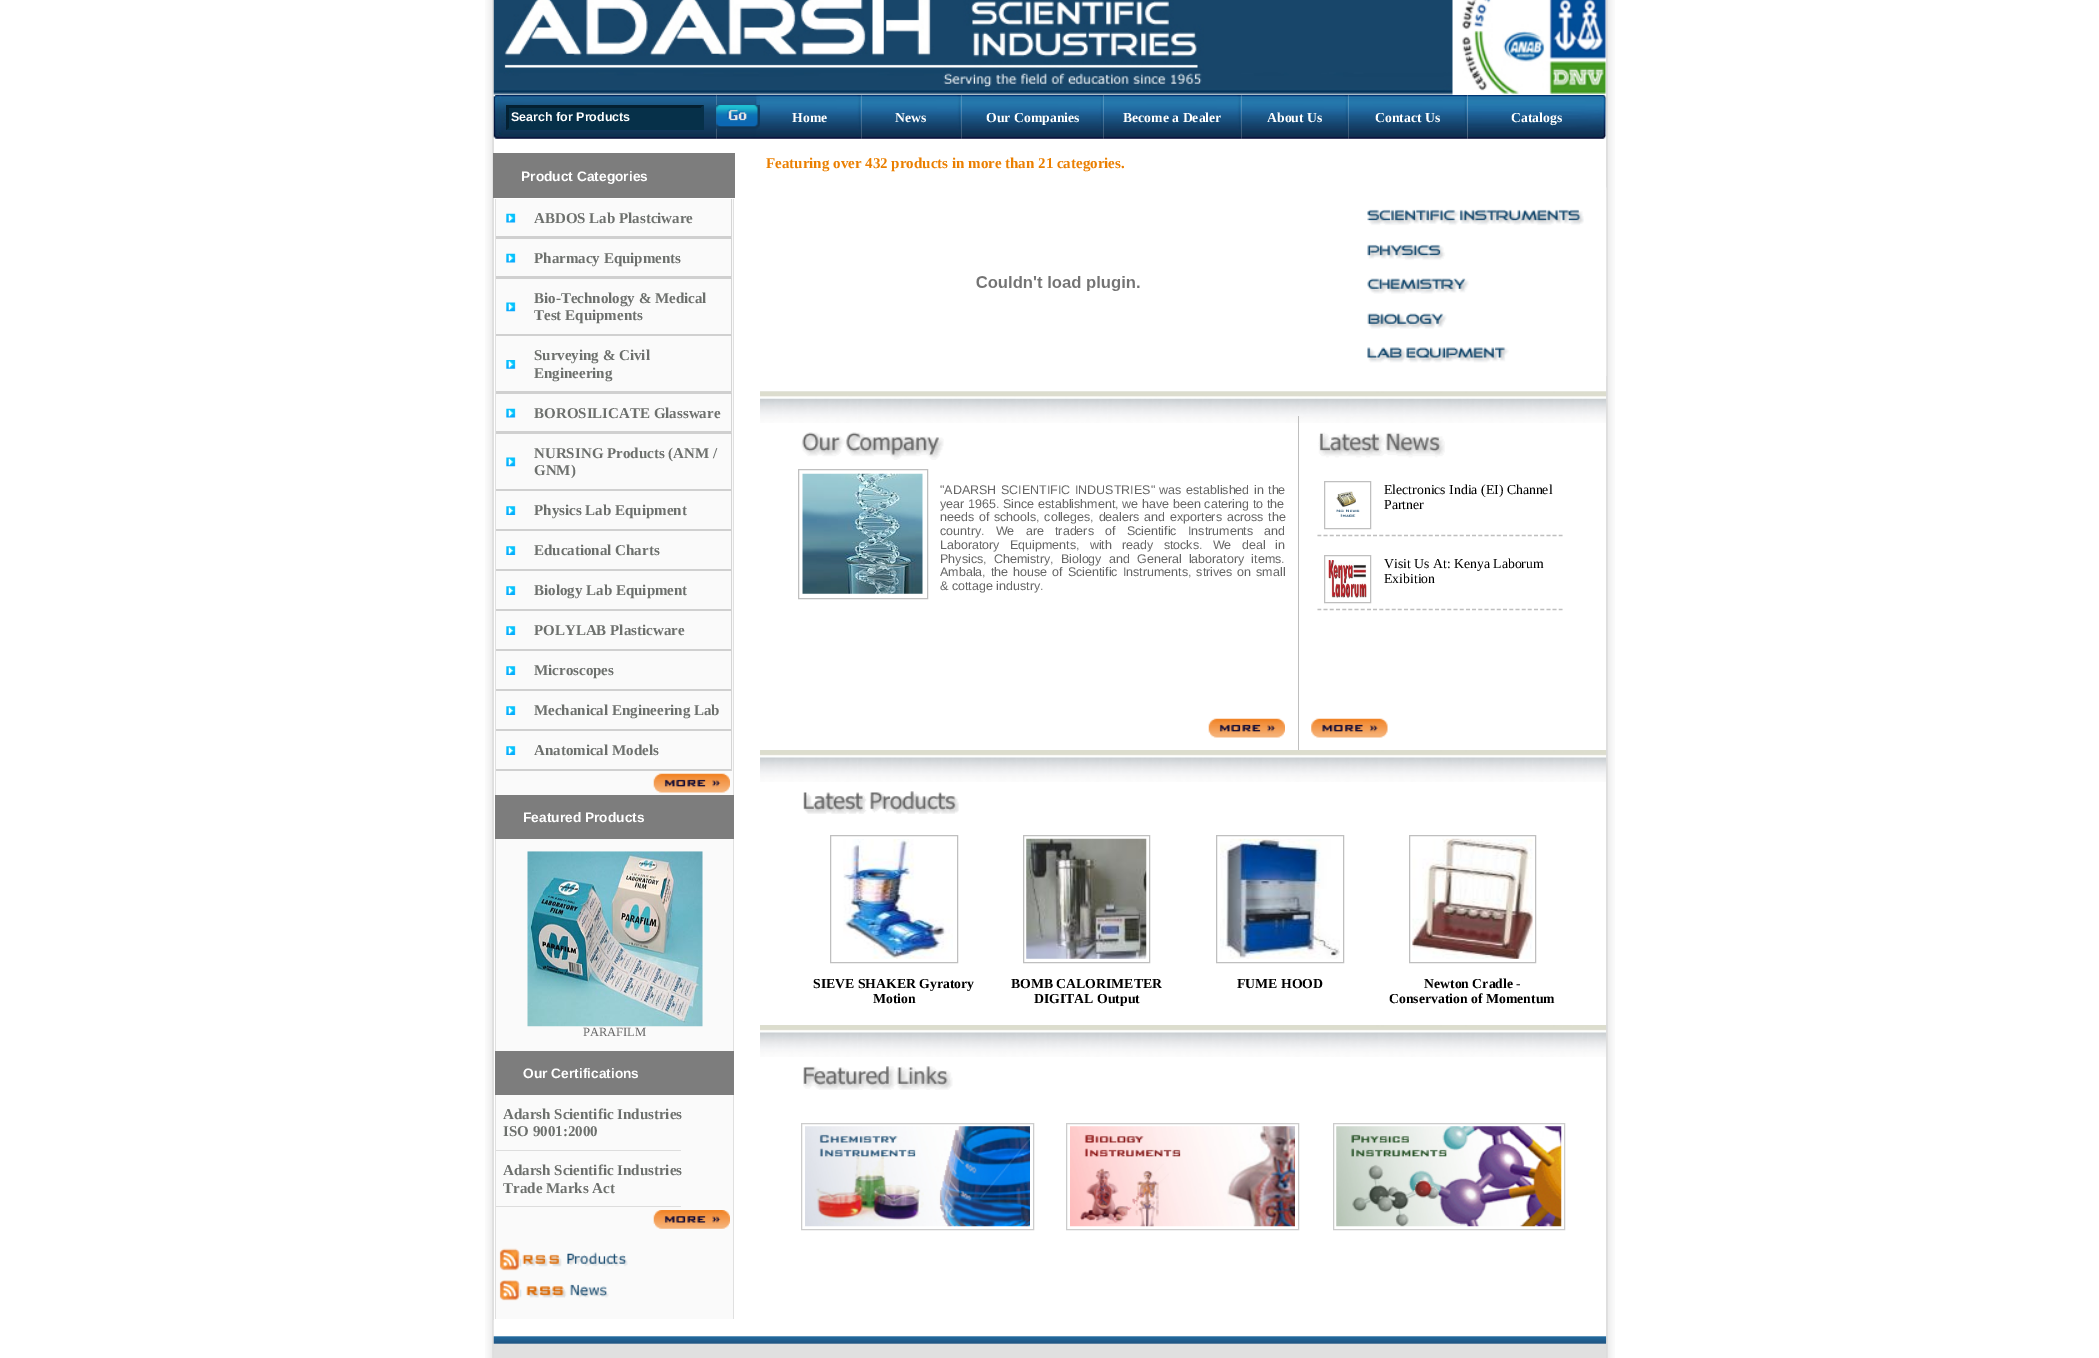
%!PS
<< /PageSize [2099 1358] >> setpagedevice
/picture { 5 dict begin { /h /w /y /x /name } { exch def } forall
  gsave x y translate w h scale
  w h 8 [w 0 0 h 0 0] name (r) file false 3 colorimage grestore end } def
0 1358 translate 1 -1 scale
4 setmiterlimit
1 setgray
0 0 2099 1358 rectfill
(img1.rgb) 485 0 9 1358 picture
(img2.rgb) 493 0 960 95 picture
(img3.rgb) 1462 0 145 95 picture
(img4.rgb) 493 95 224 44 picture
0.024 0.188 0.286 setrgbcolor
506 105 198 25 rectfill
0.016 0.125 0.192 setrgbcolor
newpath 506 105 moveto 704 105 lineto 701 108 lineto 509 108 lineto closepath fill
0.024 0.188 0.286 setrgbcolor
newpath 704 105 moveto 704 130 lineto 701 127.5 lineto 701 107.5 lineto closepath fill
0.016 0.125 0.192 setrgbcolor
newpath 506 130 moveto 506 105 lineto 509 107.5 lineto 509 127.5 lineto closepath fill
/LiberationSans-Bold [12.5 0 0 -12.5 0 0] selectfont
1 setgray
511 121 moveto (Search for Products) show
(img5.rgb) 716 95 44 44 picture
(img6.rgb) 716 105 44 24 picture
(img7.rgb) 760 95 102 44 picture
/LiberationSerif-Bold [13.75 0 0 -13.75 0 0] selectfont
792 122 moveto (Home) show
(img8.rgb) 861 95 101 44 picture
895 122 moveto (News) show
(img9.rgb) 961 95 143 44 picture
986 122 moveto (Our Companies) show
(img10.rgb) 1103 95 139 44 picture
1123 122 moveto (Become a Dealer) show
(img11.rgb) 1241 95 108 44 picture
1267 122 moveto (About Us) show
(img12.rgb) 1348 95 120 44 picture
1375 122 moveto (Contact Us) show
(img13.rgb) 1467 95 140 44 picture
1511 122 moveto (Catalogs) show
0.49 setgray
493 153 242 45 rectfill
/LiberationSans-Bold [13.75 0 0 -13.75 0 0] selectfont
1 setgray
521 181 moveto (Product Categories) show
0.98 setgray
496 199 237 596 rectfill
0.835 setgray
newpath 732 199 moveto 732 239 lineto 731 236 lineto 731 199 lineto closepath fill
0.816 setgray
newpath 732 239 moveto 496 239 lineto 496 236 lineto 731 236 lineto closepath fill
(img14.rgb) 506 213 10 10 picture
/LiberationSerif-Bold [15 0 0 -15 0 0] selectfont
0.427 0.439 0.427 setrgbcolor
534 223 moveto (ABDOS Lab Plastciware) show
0.835 setgray
newpath 732 239 moveto 732 279 lineto 731 276 lineto 731 239 lineto closepath fill
0.816 setgray
newpath 732 279 moveto 496 279 lineto 496 276 lineto 731 276 lineto closepath fill
(img14.rgb) 506 253 10 10 picture
0.427 0.439 0.427 setrgbcolor
534 263 moveto (Pharmacy Equipments) show
0.835 setgray
newpath 732 279 moveto 732 336 lineto 731 334 lineto 731 279 lineto closepath fill
0.816 setgray
newpath 732 336 moveto 496 336 lineto 496 334 lineto 731 334 lineto closepath fill
(img15.rgb) 506 302 10 10 picture
0.427 0.439 0.427 setrgbcolor
534 303 moveto (Bio-Technology & Medical) show
534 320 moveto (Test Equipments) show
0.835 setgray
newpath 732 336 moveto 732 394 lineto 731 391 lineto 731 336 lineto closepath fill
0.816 setgray
newpath 732 394 moveto 496 394 lineto 496 391 lineto 731 391 lineto closepath fill
(img16.rgb) 506 360 10 9 picture
0.427 0.439 0.427 setrgbcolor
534 360 moveto (Surveying & Civil) show
534 378 moveto (Engineering) show
0.835 setgray
newpath 732 394 moveto 732 434 lineto 731 431 lineto 731 394 lineto closepath fill
0.816 setgray
newpath 732 434 moveto 496 434 lineto 496 431 lineto 731 431 lineto closepath fill
(img14.rgb) 506 408 10 10 picture
0.427 0.439 0.427 setrgbcolor
534 418 moveto (BOROSILICATE Glassware) show
0.835 setgray
newpath 732 434 moveto 732 491 lineto 731 489 lineto 731 434 lineto closepath fill
0.816 setgray
newpath 732 491 moveto 496 491 lineto 496 489 lineto 731 489 lineto closepath fill
(img17.rgb) 506 457 10 10 picture
0.427 0.439 0.427 setrgbcolor
534 458 moveto (NURSING Products \(ANM /) show
534 475 moveto (GNM\)) show
0.835 setgray
newpath 732 491 moveto 732 531 lineto 731 529 lineto 731 491 lineto closepath fill
0.816 setgray
newpath 732 531 moveto 496 531 lineto 496 529 lineto 731 529 lineto closepath fill
(img18.rgb) 506 506 10 9 picture
0.427 0.439 0.427 setrgbcolor
534 515 moveto (Physics Lab Equipment) show
0.835 setgray
newpath 732 531 moveto 732 571 lineto 731 569 lineto 731 531 lineto closepath fill
0.816 setgray
newpath 732 571 moveto 496 571 lineto 496 569 lineto 731 569 lineto closepath fill
(img18.rgb) 506 546 10 9 picture
0.427 0.439 0.427 setrgbcolor
534 555 moveto (Educational Charts) show
0.835 setgray
newpath 732 571 moveto 732 611 lineto 731 609 lineto 731 571 lineto closepath fill
0.816 setgray
newpath 732 611 moveto 496 611 lineto 496 609 lineto 731 609 lineto closepath fill
(img18.rgb) 506 586 10 9 picture
0.427 0.439 0.427 setrgbcolor
534 595 moveto (Biology Lab Equipment) show
0.835 setgray
newpath 732 611 moveto 732 651 lineto 731 649 lineto 731 611 lineto closepath fill
0.816 setgray
newpath 732 651 moveto 496 651 lineto 496 649 lineto 731 649 lineto closepath fill
(img18.rgb) 506 626 10 9 picture
0.427 0.439 0.427 setrgbcolor
534 635 moveto (POLYLAB Plasticware) show
0.835 setgray
newpath 732 651 moveto 732 691 lineto 731 689 lineto 731 651 lineto closepath fill
0.816 setgray
newpath 732 691 moveto 496 691 lineto 496 689 lineto 731 689 lineto closepath fill
(img18.rgb) 506 666 10 9 picture
0.427 0.439 0.427 setrgbcolor
534 675 moveto (Microscopes) show
0.835 setgray
newpath 732 691 moveto 732 731 lineto 731 729 lineto 731 691 lineto closepath fill
0.816 setgray
newpath 732 731 moveto 496 731 lineto 496 729 lineto 731 729 lineto closepath fill
(img18.rgb) 506 706 10 9 picture
0.427 0.439 0.427 setrgbcolor
534 715 moveto (Mechanical Engineering Lab) show
0.878 setgray
733 199 1 596 rectfill
495 199 1 596 rectfill
0.835 setgray
newpath 732 731 moveto 732 771 lineto 731 769 lineto 731 731 lineto closepath fill
0.816 setgray
newpath 732 771 moveto 496 771 lineto 496 769 lineto 731 769 lineto closepath fill
(img18.rgb) 506 746 10 9 picture
0.427 0.439 0.427 setrgbcolor
534 755 moveto (Anatomical Models) show
(img19.rgb) 653 773 77 20 picture
0.98 setgray
496 839 237 480 rectfill
0.49 setgray
495 795 239 44 rectfill
/LiberationSans-Bold [13.75 0 0 -13.75 0 0] selectfont
1 setgray
523 822 moveto (Featured Products) show
0.878 setgray
733 839 1 212 rectfill
495 839 1 212 rectfill
(img20.rgb) 527 851 176 176 picture
/LiberationSerif-Regular [12.5 0 0 -12.5 0 0] selectfont
0.4 setgray
583 1036 moveto (PARAFILM) show
0.49 setgray
495 1051 239 44 rectfill
/LiberationSans-Bold [13.75 0 0 -13.75 0 0] selectfont
1 setgray
523 1078 moveto (Our Certifications) show
0.878 setgray
733 1095 1 224 rectfill
495 1095 1 224 rectfill
0.867 setgray
496 1150 185 1 rectfill
/LiberationSerif-Bold [15 0 0 -15 0 0] selectfont
0.427 0.439 0.427 setrgbcolor
503 1119 moveto (Adarsh Scientific Industries) show
503 1136 moveto (ISO 9001:2000) show
0.867 setgray
496 1206 185 1 rectfill
0.427 0.439 0.427 setrgbcolor
503 1175 moveto (Adarsh Scientific Industries) show
503 1193 moveto (Trade Marks Act) show
(img21.rgb) 653 1210 77 19 picture
(img22.rgb) 499 1248 129 23 picture
(img23.rgb) 499 1280 110 21 picture
0.922 0.498 0 setrgbcolor
766 168 moveto (Featuring over 432 products in more than 21 categories.) show
(img24.rgb) 976 276 164 15 picture
(img26.rgb) 760 391 847 32 picture
(img34.rgb) 760 750 847 32 picture
(img34.rgb) 760 1025 847 32 picture
(img44.rgb) 493 1320 1114 38 picture
(img45.rgb) 1606 0 9 1358 picture
(img25.rgb) 1367 187 240 189 picture
(img27.rgb) 801 432 143 28 picture
0.749 setgray
798.5 469.5 129 129 rectstroke
(img28.rgb) 802 473 121 121 picture
/LiberationSans-Regular [12.5 0 0 -12.5 0 0] selectfont
0.4 setgray
940 494 moveto 1 0 32 ("ADARSH SCIENTIFIC INDUSTRIES" was established in the) widthshow
940 508 moveto 0.25 0 32 (year 1965. Since establishment, we have been catering to the) widthshow
940 521 moveto 1.25 0 32 (needs of schools, colleges, dealers and exporters across the) widthshow
940 535 moveto 7.75 0 32 (country. We are traders of Scientific Instruments and) widthshow
940 549 moveto 6.75 0 32 (Laboratory Equipments, with ready stocks. We deal in) widthshow
940 563 moveto 3.75 0 32 (Physics, Chemistry, Biology and General laboratory items.) widthshow
940 576 moveto 1.5 0 32 (Ambala, the house of Scientific Instruments, strives on small) widthshow
940 590 moveto (& cottage industry.) show
(img29.rgb) 1208 718 77 20 picture
0.749 setgray
1298 416 1 334 rectfill
(img30.rgb) 1318 432 127 26 picture
1.2 setlinewidth
[3.75 2.44] 0 setdash
newpath 1317.5 535.5 moveto 1562.5 535.5 lineto stroke
1 setlinewidth
[] 0 setdash
1324.5 481.5 46 47 rectstroke
(img31.rgb) 1336 491 24 26 picture
/LiberationSerif-Regular [13.75 0 0 -13.75 0 0] selectfont
0 setgray
1384 494 moveto (Electronics India \(EI\) Channel) show
1384 509 moveto (Partner) show
0.749 setgray
1.2 setlinewidth
[3.75 2.44] 0 setdash
newpath 1317.5 609.5 moveto 1562.5 609.5 lineto stroke
1 setlinewidth
[] 0 setdash
1324.5 555.5 46 47 rectstroke
(img32.rgb) 1328 560 39 38 picture
0 setgray
1384 568 moveto (Visit Us At: Kenya Laborum) show
1384 583 moveto (Exibition) show
(img33.rgb) 1311 718 77 20 picture
(img35.rgb) 803 791 156 23 picture
0.749 setgray
830.5 835.5 127 127 rectstroke
(img36.rgb) 843 839 110 120 picture
/LiberationSerif-Bold [13.75 0 0 -13.75 0 0] selectfont
0 setgray
813 988 moveto (SIEVE SHAKER Gyratory) show
873 1003 moveto (Motion) show
0.749 setgray
1023.5 835.5 126 127 rectstroke
(img37.rgb) 1026 838 121 121 picture
0 setgray
1011 988 moveto (BOMB CALORIMETER) show
1034 1003 moveto (DIGITAL Output) show
0.749 setgray
1216.5 835.5 127 127 rectstroke
(img38.rgb) 1220 838 120 121 picture
0 setgray
1237 988 moveto (FUME HOOD) show
0.749 setgray
1409.5 835.5 126 127 rectstroke
(img39.rgb) 1412 838 121 121 picture
0 setgray
1424 988 moveto (Newton Cradle -) show
1389 1003 moveto (Conservation of Momentum) show
(img40.rgb) 803 1066 150 24 picture
0.8 setgray
801.5 1123.5 232 106 rectstroke
(img41.rgb) 805 1126 225 101 picture
1066.5 1123.5 232 106 rectstroke
(img42.rgb) 1070 1126 225 101 picture
1333.5 1123.5 231 106 rectstroke
(img43.rgb) 1336 1126 226 101 picture
showpage
